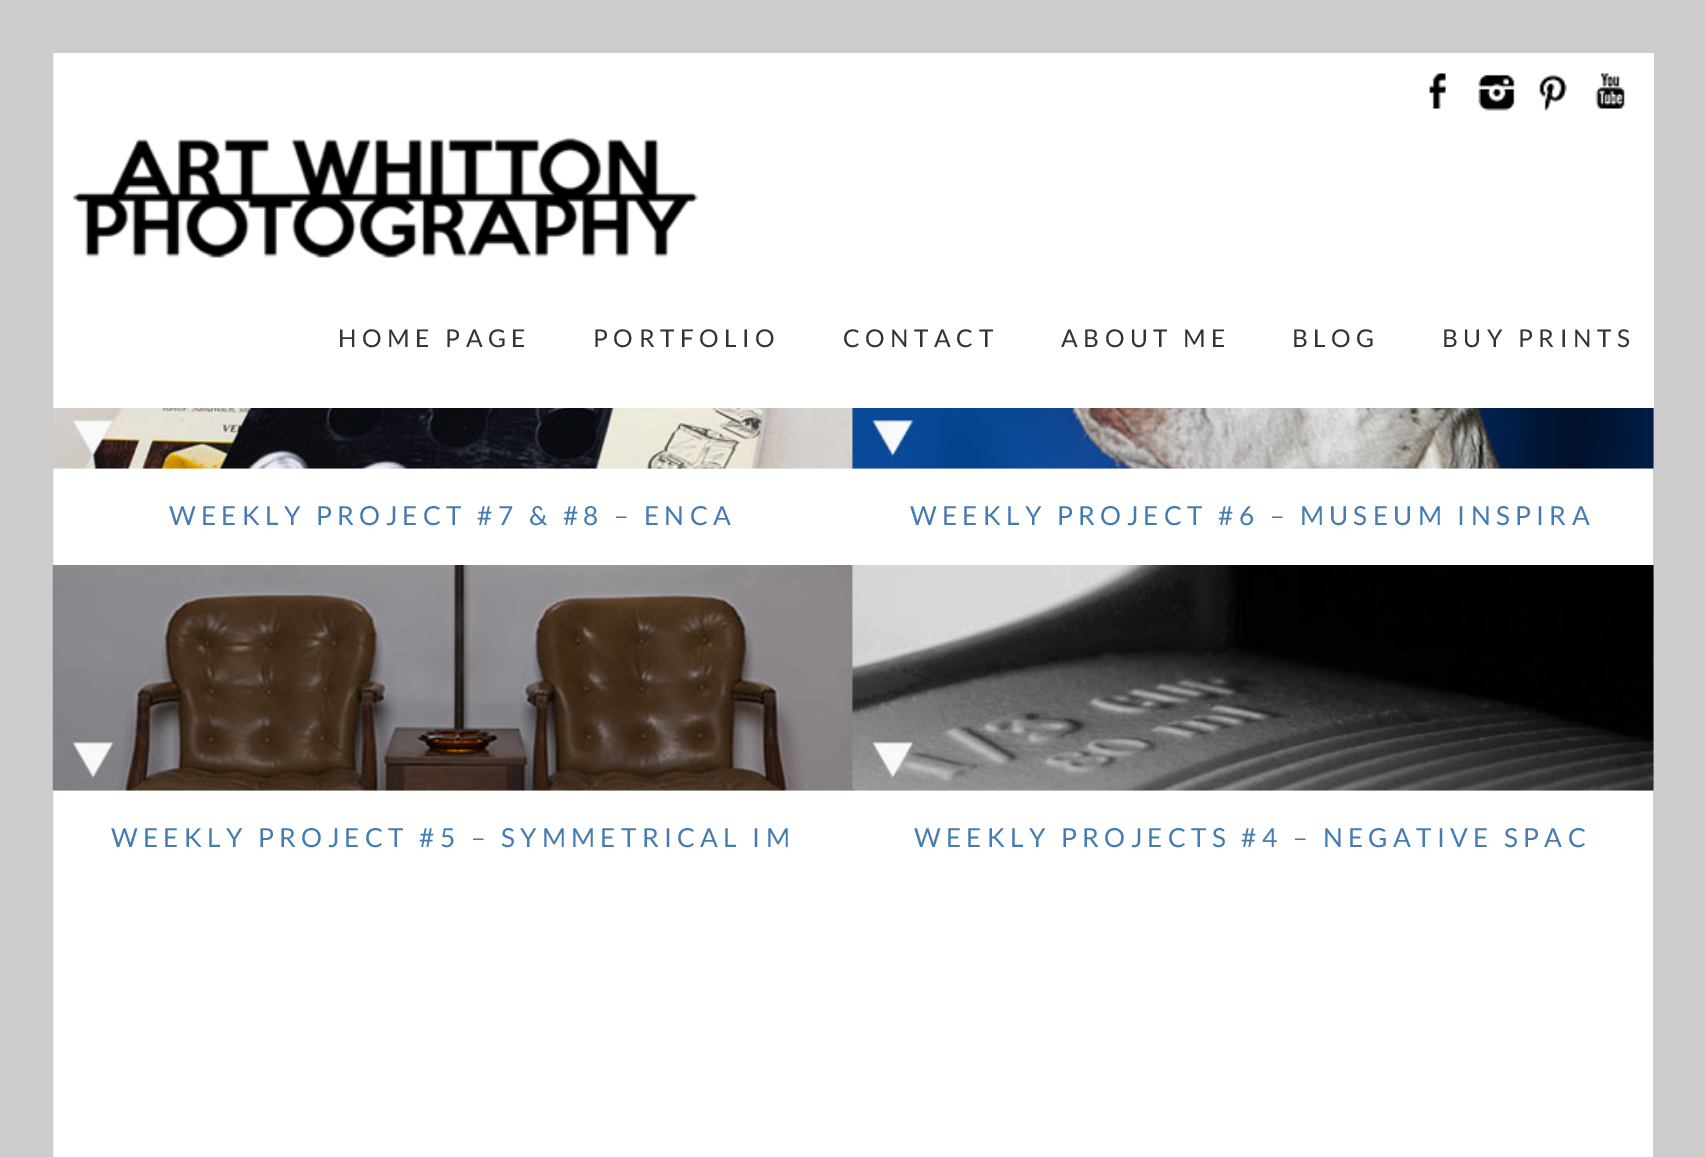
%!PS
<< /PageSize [1705 1157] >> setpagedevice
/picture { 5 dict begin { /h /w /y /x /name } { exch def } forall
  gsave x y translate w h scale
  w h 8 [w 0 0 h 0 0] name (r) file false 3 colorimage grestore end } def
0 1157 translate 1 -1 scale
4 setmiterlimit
1 setgray
0 0 1705 1157 rectfill
0.804 setgray
53 setlinewidth
26.5 -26.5 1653 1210 rectstroke
1 setgray
1653 53 1 355 rectfill
0.804 setgray
53 0 1600 53 rectfill
(img1.rgb) 1428 73 18 36 picture
(img2.rgb) 1478 74 37 37 picture
(img3.rgb) 1539 74 28 37 picture
(img4.rgb) 1595 73 30 36 picture
(img5.rgb) 73 137 626 121 picture
/Lato-Regular [24.5 0 0 -24.5 0 0] selectfont
0.2 setgray
338 347 moveto 5.5 0 (HOME PAGE) ashow
593 347 moveto 5.5 0 (PORTFOLIO) ashow
843 347 moveto 5.5 0 (CONTACT) ashow
1061 347 moveto 5.5 0 (ABOUT ME) ashow
1292 347 moveto 5.5 0 (BLOG) ashow
1442 347 moveto 5.5 0 (BUY PRINTS) ashow
(img6.rgb) 53 408 801 61 picture
/Lato-Regular [26.25 0 0 -26.25 0 0] selectfont
0.267 0.482 0.694 setrgbcolor
169 525 moveto 5.25 0 (WEEKLY PROJECT #7 & #8 – ENCA) ashow
(img7.rgb) 852 408 802 61 picture
910 525 moveto 5.25 0 (WEEKLY PROJECT #6 – MUSEUM INSPIRA) ashow
(img8.rgb) 52 565 802 226 picture
111 847 moveto 5.25 0 (WEEKLY PROJECT #5 – SYMMETRICAL IM) ashow
(img9.rgb) 852 565 802 226 picture
914 847 moveto 5.25 0 (WEEKLY PROJECTS #4 – NEGATIVE SPAC) ashow
showpage
